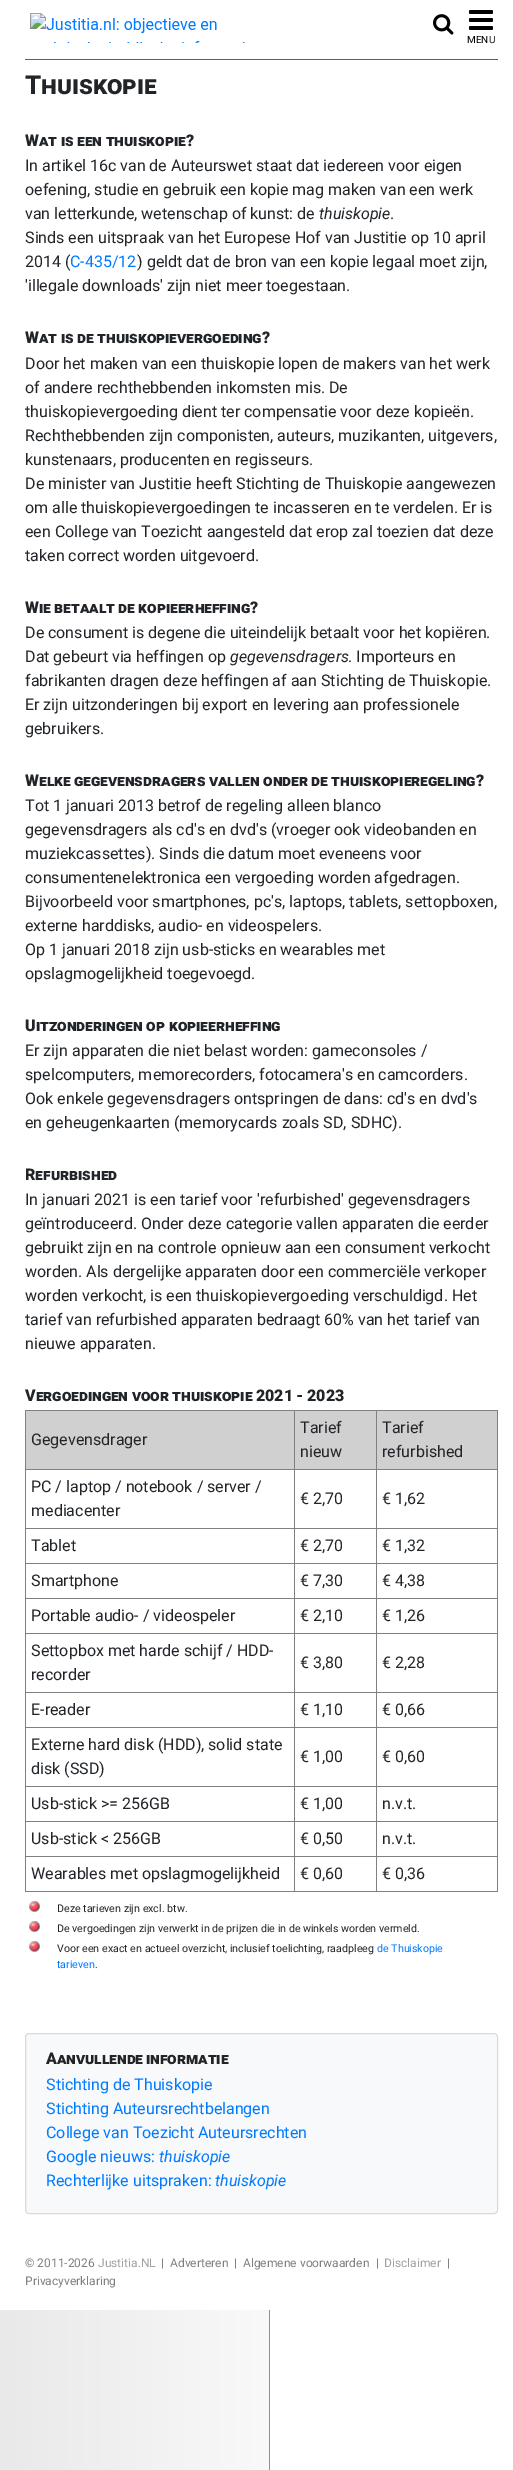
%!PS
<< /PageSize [513 2470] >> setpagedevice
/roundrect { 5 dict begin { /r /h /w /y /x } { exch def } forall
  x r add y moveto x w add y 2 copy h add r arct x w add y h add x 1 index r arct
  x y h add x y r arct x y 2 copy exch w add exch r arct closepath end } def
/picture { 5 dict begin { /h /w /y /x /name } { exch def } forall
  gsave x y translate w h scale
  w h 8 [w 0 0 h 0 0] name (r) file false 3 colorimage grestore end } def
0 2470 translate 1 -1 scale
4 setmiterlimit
1 setgray
0 0 513 2470 rectfill
0.376 setgray
25 59 473 1 rectfill
(img1.rgb) 30 13 215 30 picture
(img2.rgb) 433 14 21 21 picture
(img3.rgb) 469 10 24 20 picture
/Roboto-Regular [10 0 0 -10 0 0] selectfont
0 setgray
467 43 moveto (MENU) show
/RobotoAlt-ExtraBold [26 0 0 -26 0 0] selectfont
0.129 0.145 0.161 setrgbcolor
25 94 moveto (Thuiskopie) show
/RobotoAlt-Black [16 0 0 -16 0 0] selectfont
25 146 moveto -0.5 0 32 (Wat is een thuiskopie?) widthshow
/Roboto-Regular [16 0 0 -16 0 0] selectfont
25 171 moveto (In artikel 16c van de Auteurswet staat dat iedereen voor eigen) show
25 195 moveto (oefening, studie en gebruik een kopie mag maken van een werk) show
25 219 moveto (van letterkunde, wetenschap of kunst: de) show
/Roboto-Italic [16 0 0 -16 0 0] selectfont
319 219 moveto (thuiskopie) show
/Roboto-Regular [16 0 0 -16 0 0] selectfont
390 219 moveto (.) show
25 243 moveto (Sinds een uitspraak van het Europese Hof van Justitie op 10 april) show
25 267 moveto (2014 \() show
0 0.482 1 setrgbcolor
70 267 moveto (C-435/12) show
0.129 0.145 0.161 setrgbcolor
137 267 moveto (\) geldt dat de bron van een kopie legaal moet zijn,) show
25 291 moveto ('illegale downloads' zijn niet meer toegestaan.) show
/RobotoAlt-Black [16 0 0 -16 0 0] selectfont
25 343 moveto -0.5 0 32 (Wat is de thuiskopievergoeding?) widthshow
/Roboto-Regular [16 0 0 -16 0 0] selectfont
25 369 moveto (Door het maken van een thuiskopie lopen de makers van het werk) show
25 393 moveto (of andere rechthebbenden inkomsten mis. De) show
25 417 moveto (thuiskopievergoeding dient ter compensatie voor deze kopieën.) show
25 441 moveto (Rechthebbenden zijn componisten, auteurs, muzikanten, uitgevers,) show
25 465 moveto (kunstenaars, producenten en regisseurs.) show
25 489 moveto (De minister van Justitie heeft Stichting de Thuiskopie aangewezen) show
25 513 moveto (om alle thuiskopievergoedingen te incasseren en te verdelen. Er is) show
25 537 moveto (een College van Toezicht aangesteld dat erop zal toezien dat deze) show
25 561 moveto (taken correct worden uitgevoerd.) show
/RobotoAlt-Black [16 0 0 -16 0 0] selectfont
25 613 moveto -0.5 0 32 (Wie betaalt de kopieerheffing?) widthshow
/Roboto-Regular [16 0 0 -16 0 0] selectfont
25 638 moveto (De consument is degene die uiteindelijk betaalt voor het kopiëren.) show
25 662 moveto (Dat gebeurt via heffingen op) show
/Roboto-Italic [16 0 0 -16 0 0] selectfont
230 662 moveto (gegevensdragers) show
/Roboto-Regular [16 0 0 -16 0 0] selectfont
348 662 moveto (. Importeurs en) show
25 686 moveto (fabrikanten dragen deze heffingen af aan Stichting de Thuiskopie.) show
25 710 moveto (Er zijn uitzonderingen bij export en levering aan professionele) show
25 734 moveto (gebruikers.) show
/RobotoAlt-Black [16 0 0 -16 0 0] selectfont
25 786 moveto -0.5 0 32 (Welke gegevensdragers vallen onder de thuiskopieregeling?) widthshow
/Roboto-Regular [16 0 0 -16 0 0] selectfont
25 811 moveto (Tot 1 januari 2013 betrof de regeling alleen blanco) show
25 835 moveto (gegevensdragers als cd's en dvd's \(vroeger ook videobanden en) show
25 859 moveto (muziekcassettes\). Sinds die datum moet eveneens voor) show
25 883 moveto (consumentenelektronica een vergoeding worden afgedragen.) show
25 907 moveto (Bijvoorbeeld voor smartphones, pc's, laptops, tablets, settopboxen,) show
25 931 moveto (externe harddisks, audio- en videospelers.) show
25 955 moveto (Op 1 januari 2018 zijn usb-sticks en wearables met) show
25 979 moveto (opslagmogelijkheid toegevoegd.) show
/RobotoAlt-Black [16 0 0 -16 0 0] selectfont
25 1031 moveto (Uitzonderingen op kopieerheffing) show
/Roboto-Regular [16 0 0 -16 0 0] selectfont
25 1056 moveto (Er zijn apparaten die niet belast worden: gameconsoles /) show
25 1080 moveto (spelcomputers, memorecorders, fotocamera's en camcorders.) show
25 1104 moveto (Ook enkele gegevensdragers ontspringen de dans: cd's en dvd's) show
25 1128 moveto (en geheugenkaarten \(memorycards zoals SD, SDHC\).) show
/RobotoAlt-Black [16 0 0 -16 0 0] selectfont
25 1180 moveto (Refurbished) show
/Roboto-Regular [16 0 0 -16 0 0] selectfont
25 1205 moveto (In januari 2021 is een tarief voor 'refurbished' gegevensdragers) show
25 1229 moveto (geïntroduceerd. Onder deze categorie vallen apparaten die eerder) show
25 1253 moveto (gebruikt zijn en na controle opnieuw aan een consument verkocht) show
25 1277 moveto (worden. Als dergelijke apparaten door een commerciële verkoper) show
25 1301 moveto (worden verkocht, is een thuiskopievergoeding verschuldigd. Het) show
25 1325 moveto (tarief van refurbished apparaten bedraagt 60% van het tarief van) show
25 1349 moveto (nieuwe apparaten.) show
/RobotoAlt-Black [16 0 0 -16 0 0] selectfont
25 1401 moveto -0.5 0 32 (Vergoedingen voor thuiskopie 2021 - 2023) widthshow
0.502 setgray
25 1410 473 1 rectfill
497 1410 1 482 rectfill
25 1891 473 1 rectfill
25 1410 1 482 rectfill
0.816 setgray
26 1411 471 58 rectfill
/Roboto-Regular [16 0 0 -16 0 0] selectfont
0.129 0.145 0.161 setrgbcolor
31 1445 moveto (Gegevensdrager) show
0.502 setgray
376 1469 122 1 rectfill
376 1528 122 1 rectfill
376 1563 122 1 rectfill
376 1598 122 1 rectfill
376 1633 122 1 rectfill
376 1692 122 1 rectfill
376 1727 122 1 rectfill
376 1786 122 1 rectfill
376 1821 122 1 rectfill
376 1856 122 1 rectfill
376 1856 1 36 rectfill
294 1856 83 1 rectfill
376 1821 1 36 rectfill
294 1821 83 1 rectfill
376 1786 1 36 rectfill
294 1786 83 1 rectfill
376 1727 1 60 rectfill
294 1727 83 1 rectfill
376 1692 1 36 rectfill
294 1692 83 1 rectfill
376 1633 1 60 rectfill
294 1633 83 1 rectfill
376 1598 1 36 rectfill
294 1598 83 1 rectfill
376 1563 1 36 rectfill
294 1563 83 1 rectfill
376 1528 1 36 rectfill
294 1528 83 1 rectfill
376 1469 1 60 rectfill
294 1469 83 1 rectfill
294 1856 1 36 rectfill
25 1856 270 1 rectfill
294 1821 1 36 rectfill
25 1821 270 1 rectfill
294 1786 1 36 rectfill
25 1786 270 1 rectfill
294 1727 1 60 rectfill
25 1727 270 1 rectfill
294 1692 1 36 rectfill
25 1692 270 1 rectfill
294 1633 1 60 rectfill
25 1633 270 1 rectfill
294 1598 1 36 rectfill
25 1598 270 1 rectfill
294 1563 1 36 rectfill
25 1563 270 1 rectfill
294 1528 1 36 rectfill
25 1528 270 1 rectfill
294 1469 1 60 rectfill
25 1469 270 1 rectfill
294 1410 1 60 rectfill
0.129 0.145 0.161 setrgbcolor
300 1433 moveto (Tarief) show
300 1457 moveto (nieuw) show
0.502 setgray
376 1410 1 60 rectfill
0.129 0.145 0.161 setrgbcolor
382 1433 moveto (Tarief) show
382 1457 moveto (refurbished) show
31 1492 moveto (PC / laptop / notebook / server /) show
31 1516 moveto (mediacenter) show
300 1504 moveto (€ 2,70) show
382 1504 moveto (€ 1,62) show
31 1551 moveto (Tablet) show
300 1551 moveto (€ 2,70) show
382 1551 moveto (€ 1,32) show
31 1586 moveto (Smartphone) show
300 1586 moveto (€ 7,30) show
382 1586 moveto (€ 4,38) show
31 1621 moveto (Portable audio- / videospeler) show
300 1621 moveto (€ 2,10) show
382 1621 moveto (€ 1,26) show
31 1656 moveto (Settopbox met harde schijf / HDD-) show
31 1680 moveto (recorder) show
300 1668 moveto (€ 3,80) show
382 1668 moveto (€ 2,28) show
31 1715 moveto (E-reader) show
300 1715 moveto (€ 1,10) show
382 1715 moveto (€ 0,66) show
31 1750 moveto (Externe hard disk \(HDD\), solid state) show
31 1774 moveto (disk \(SSD\)) show
300 1762 moveto (€ 1,00) show
382 1762 moveto (€ 0,60) show
31 1809 moveto (Usb-stick >= 256GB) show
300 1809 moveto (€ 1,00) show
382 1809 moveto (n.v.t.) show
31 1844 moveto (Usb-stick < 256GB) show
300 1844 moveto (€ 0,50) show
382 1844 moveto (n.v.t.) show
31 1879 moveto (Wearables met opslagmogelijkheid) show
300 1879 moveto (€ 0,60) show
382 1879 moveto (€ 0,36) show
(img4.rgb) 29 1901 11 11 picture
/Roboto-Regular [10.65 0 0 -10.65 0 0] selectfont
57 1912 moveto (Deze tarieven zijn excl. btw.) show
(img4.rgb) 29 1921 11 11 picture
57 1932 moveto (De vergoedingen zijn verwerkt in de prijzen die in de winkels worden vermeld.) show
(img4.rgb) 29 1941 11 11 picture
57 1952 moveto (Voor een exact en actueel overzicht, inclusief toelichting, raadpleeg) show
0 0.482 1 setrgbcolor
377 1952 moveto (de Thuiskopie) show
57 1968 moveto (tarieven) show
0.129 0.145 0.161 setrgbcolor
95 1968 moveto (.) show
0.973 0.976 0.98 setrgbcolor
25.5 2033.5 472 180 3.5 roundrect gsave fill grestore
0.851 0.855 0.859 setrgbcolor
stroke
/RobotoAlt-Black [16 0 0 -16 0 0] selectfont
0.129 0.145 0.161 setrgbcolor
46 2064 moveto -1 0 32 (Aanvullende informatie) widthshow
/Roboto-Regular [16 0 0 -16 0 0] selectfont
0 0.482 1 setrgbcolor
46 2090 moveto (Stichting de Thuiskopie) show
46 2114 moveto (Stichting Auteursrechtbelangen) show
46 2138 moveto (College van Toezicht Auteursrechten) show
46 2162 moveto (Google nieuws:) show
/Roboto-Italic [16 0 0 -16 0 0] selectfont
159 2162 moveto (thuiskopie) show
/Roboto-Regular [16 0 0 -16 0 0] selectfont
46 2186 moveto (Rechterlijke uitspraken:) show
/Roboto-Italic [16 0 0 -16 0 0] selectfont
215 2186 moveto (thuiskopie) show
/Roboto-Regular [12 0 0 -12 0 0] selectfont
0.502 setgray
25 2267 moveto (© 2011-2026) show
0.627 setgray
98 2267 moveto (Justitia.NL) show
0.502 setgray
161 2267 moveto (|) show
170 2267 moveto (Adverteren) show
234 2267 moveto (|) show
243 2267 moveto (Algemene voorwaarden) show
376 2267 moveto (|) show
0.627 setgray
384 2267 moveto (Disclaimer) show
0.502 setgray
447 2267 moveto (|) show
25 2285 moveto (Privacyverklaring) show
gsave newpath 0 2310 moveto 269 2310 lineto 269 2470 lineto 0 2470 lineto closepath clip newpath
<< /ShadingType 2 /ColorSpace /DeviceRGB /Coords [0 1235 269 1235] /Extend [true true] /Function << /FunctionType 2 /Domain [0 1] /C0 [0.914 0.914 0.914] /C1 [0.976 0.976 0.976] /N 1 >> >> shfill grestore
0.565 setgray
269 2310 1 160 rectfill
showpage
